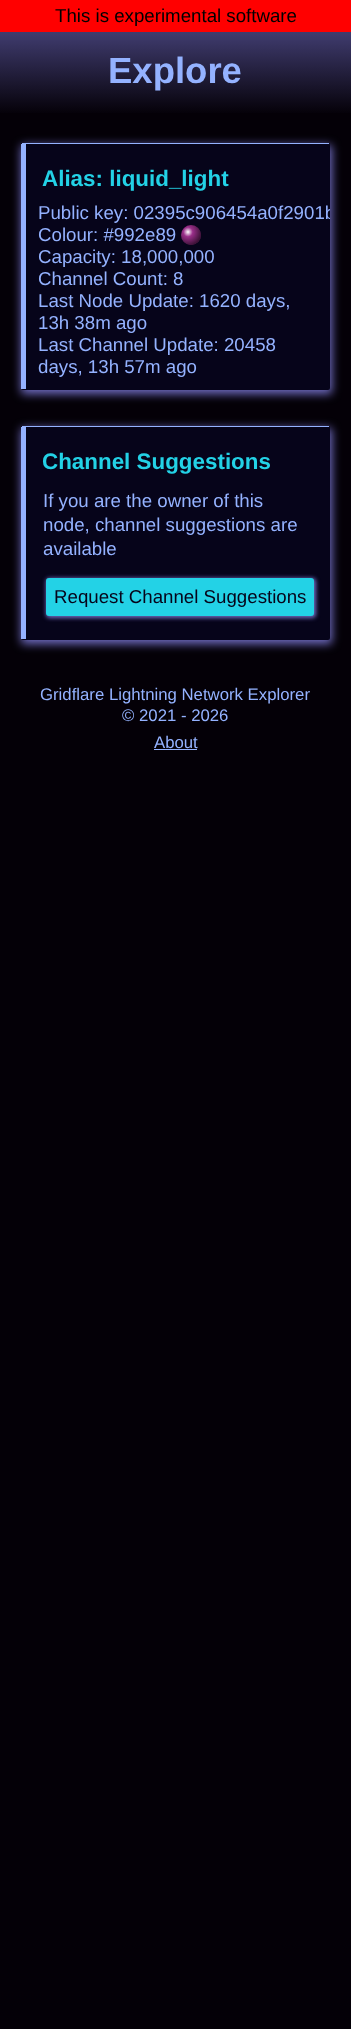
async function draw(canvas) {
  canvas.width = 351;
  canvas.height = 2029;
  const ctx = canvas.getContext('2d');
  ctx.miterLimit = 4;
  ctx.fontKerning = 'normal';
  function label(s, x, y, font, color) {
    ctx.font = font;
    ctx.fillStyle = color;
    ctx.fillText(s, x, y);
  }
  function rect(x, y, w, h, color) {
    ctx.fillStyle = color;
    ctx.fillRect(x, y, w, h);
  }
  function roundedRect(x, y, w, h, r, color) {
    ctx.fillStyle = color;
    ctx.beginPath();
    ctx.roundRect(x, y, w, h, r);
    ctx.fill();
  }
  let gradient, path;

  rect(0, 0, 351, 2029, '#040007');
  rect(0, 0, 351, 32, '#f00');
  label('This is experimental software', 55, 22, '18.7px Liberation Sans', '#000');
  gradient = ctx.createLinearGradient(176, -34, 176, 115);
  gradient.addColorStop(0, '#706cc2');
  gradient.addColorStop(1, '#040007');
  ctx.fillStyle = gradient;
  ctx.fillRect(0, 32, 351, 81);
  label('Explore', 108, 83, 'bold 36.5px Liberation Sans', '#94b2ff');
  ctx.fillStyle = '#706cc2';
  ctx.filter = 'blur(5px)';
  ctx.beginPath();
  ctx.roundRect(21, 145, 311, 249, 3);
  ctx.fill();
  ctx.filter = 'none';
  roundedRect(21, 143, 309, 247, 2, '#06041a');
  rect(22, 143, 307, 1, '#94b2ff');
  rect(21, 144, 5, 245, '#94b2ff');
  label('Alias: liquid_light', 42, 186, 'bold 22.4px Liberation Sans', '#23d2e6');
  ctx.save();
  path = new Path2D('M26 144H328C329 144 330 144.5 330 145V388C330 389 329 390 328 390H26Z');
  ctx.clip(path);
  label('Public key: 02395c906454a0f2901b', 38, 219, '18.7px Liberation Sans', '#94b2ff');
  ctx.restore();
  label('Colour: #992e89', 38, 241, '18.7px Liberation Sans', '#94b2ff');
  ctx.fillStyle = '#992e89';
  ctx.beginPath();
  ctx.arc(191, 235, 10, 0, 2 * Math.PI);
  ctx.fill();
  gradient = ctx.createRadialGradient(188, 232, 0, 188, 232, 19);
  gradient.addColorStop(0, '#fff');
  gradient.addColorStop(0.25, '#ffffff00');
  gradient.addColorStop(0.25, '#00000000');
  gradient.addColorStop(1, '#000');
  ctx.fillStyle = gradient;
  ctx.beginPath();
  ctx.arc(191, 235, 10, 0, 2 * Math.PI);
  ctx.fill();
  label('Capacity: 18,000,000', 38, 263, '18.7px Liberation Sans', '#94b2ff');
  label('Channel Count: 8', 38, 285, '18.7px Liberation Sans', '#94b2ff');
  label('Last Node Update: 1620 days,', 38, 307, '18.7px Liberation Sans', '#94b2ff');
  label('13h 38m ago', 38, 329, '18.7px Liberation Sans', '#94b2ff');
  label('Last Channel Update: 20458', 38, 351, '18.7px Liberation Sans', '#94b2ff');
  label('days, 13h 57m ago', 38, 373, '18.7px Liberation Sans', '#94b2ff');
  ctx.fillStyle = '#706cc2';
  ctx.filter = 'blur(5px)';
  ctx.beginPath();
  ctx.roundRect(21, 428, 311, 216, 3);
  ctx.fill();
  ctx.filter = 'none';
  roundedRect(21, 426, 309, 214, 2, '#06041a');
  rect(22, 426, 307, 1, '#94b2ff');
  rect(21, 427, 5, 212, '#94b2ff');
  label('Channel Suggestions', 42, 469, 'bold 22.4px Liberation Sans', '#23d2e6');
  label('If you are the owner of this', 43, 507, '18.7px Liberation Sans', '#94b2ff');
  label('node, channel suggestions are', 43, 531, '18.7px Liberation Sans', '#94b2ff');
  label('available', 43, 555, '18.7px Liberation Sans', '#94b2ff');
  ctx.fillStyle = '#706cc2';
  ctx.filter = 'blur(2px)';
  ctx.beginPath();
  ctx.roundRect(46, 578, 270, 40, 4);
  ctx.fill();
  ctx.filter = 'none';
  roundedRect(46, 578, 268, 38, 3, '#23d2e6');
  label('Request Channel Suggestions', 54, 603, '18.7px Liberation Sans', '#06041a');
  label('Gridflare Lightning Network Explorer', 40, 700, '16.75px Liberation Sans', '#94b2ff');
  label('© 2021 - 2026', 122, 721, '16.75px Liberation Sans', '#94b2ff');
  label('About', 154, 748, '16.75px Liberation Sans', '#94b2ff');
  rect(154, 749, 43, 1, '#94b2ff');
}

draw(document.querySelector('canvas'));
